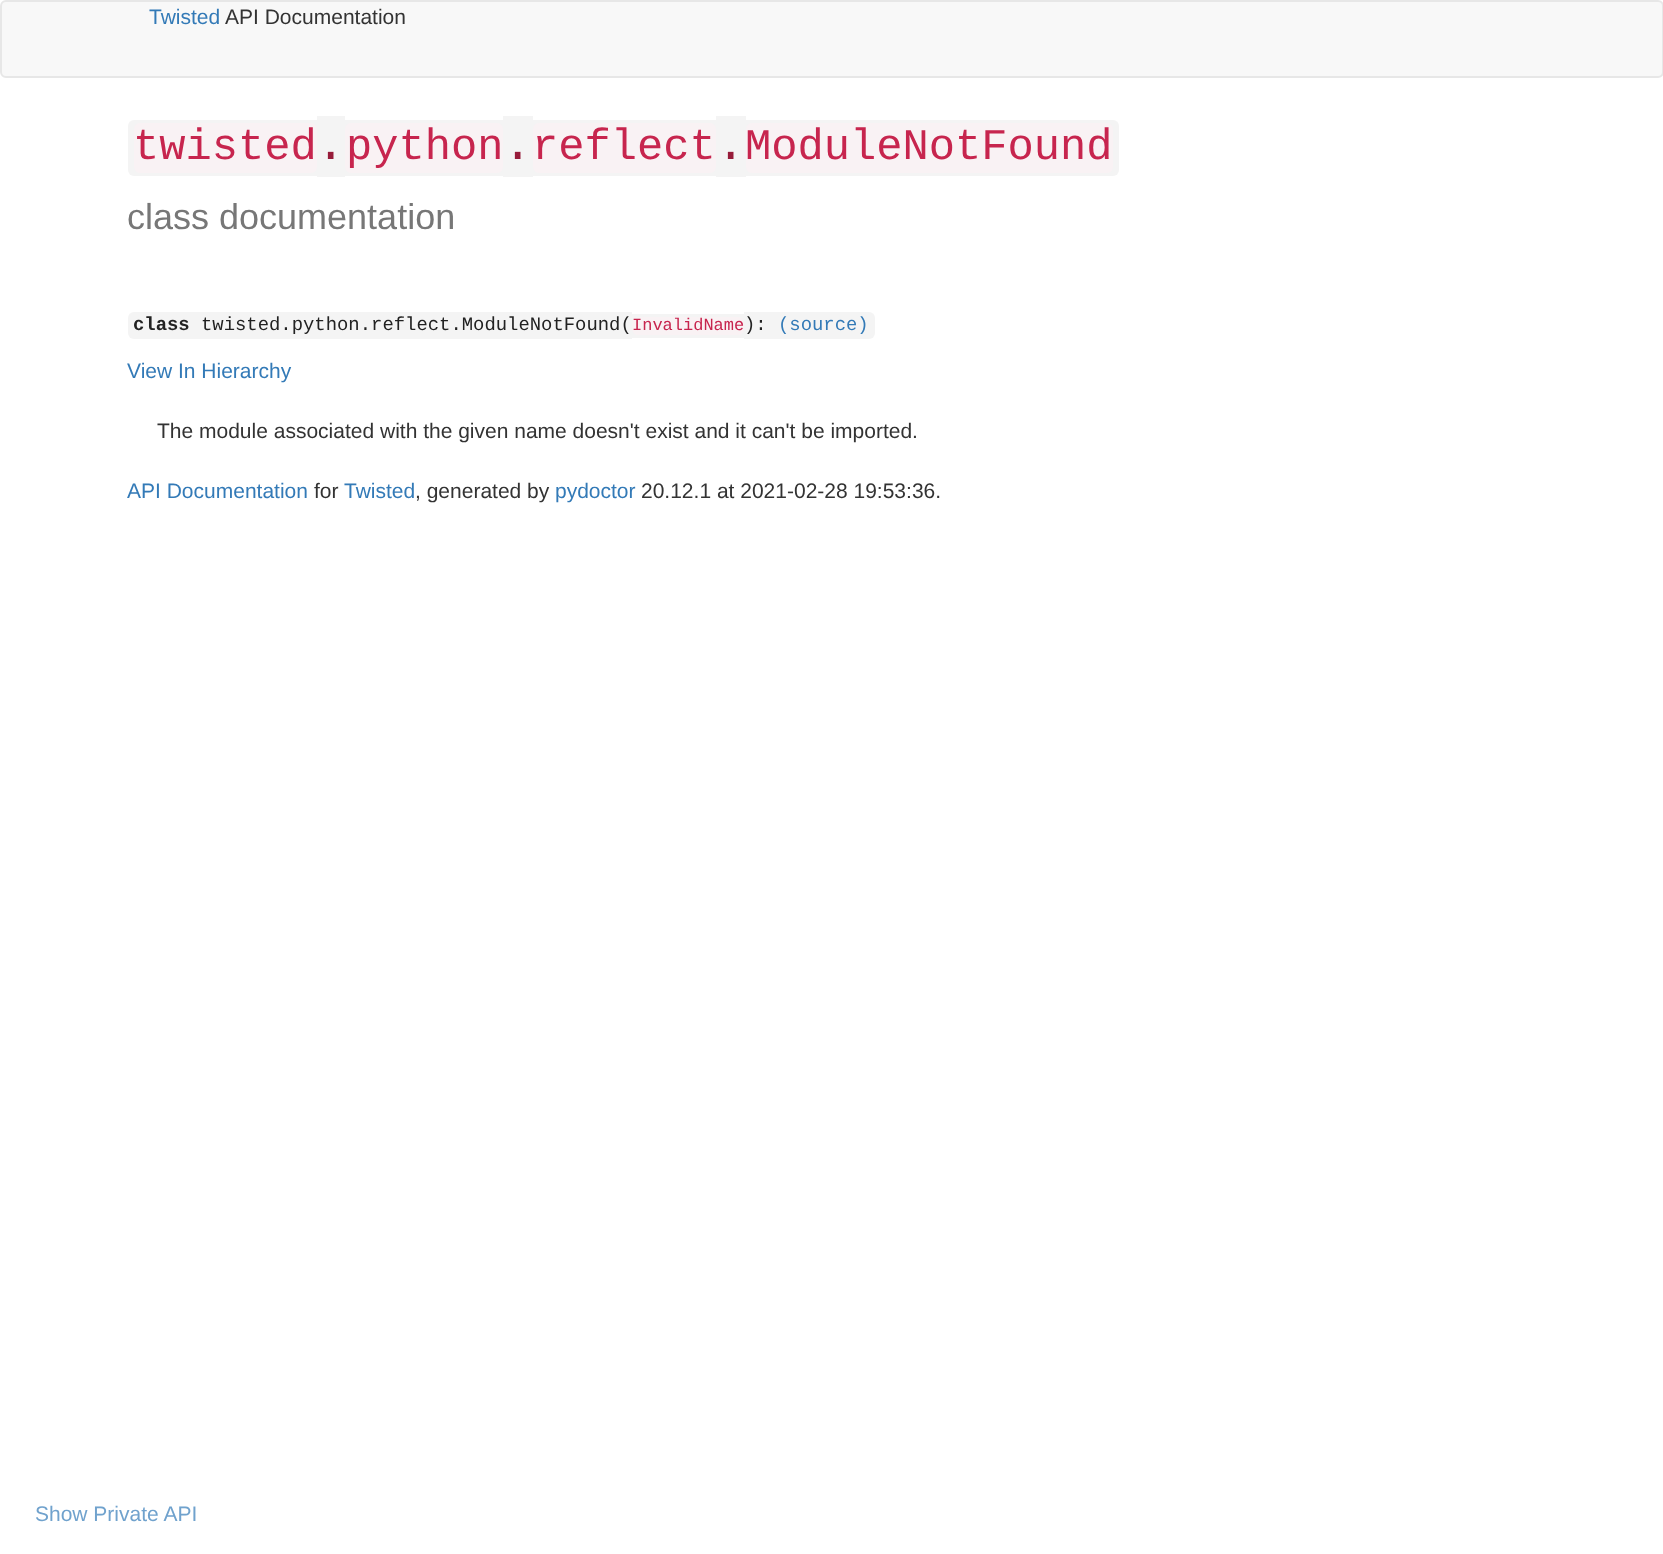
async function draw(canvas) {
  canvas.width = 1663;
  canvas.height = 1554;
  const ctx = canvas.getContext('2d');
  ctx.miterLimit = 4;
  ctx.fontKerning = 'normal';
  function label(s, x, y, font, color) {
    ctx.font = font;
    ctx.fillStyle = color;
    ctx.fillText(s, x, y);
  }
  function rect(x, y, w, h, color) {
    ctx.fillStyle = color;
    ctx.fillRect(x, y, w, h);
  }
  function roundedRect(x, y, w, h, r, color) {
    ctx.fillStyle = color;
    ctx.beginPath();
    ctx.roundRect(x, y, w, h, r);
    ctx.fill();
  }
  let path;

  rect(0, 0, 1663, 1554, '#fff');
  ctx.fillStyle = '#f8f8f8';
  ctx.beginPath();
  ctx.roundRect(1, 1, 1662, 76, 5);
  ctx.fill();
  ctx.strokeStyle = '#e7e7e7';
  ctx.lineWidth = 2;
  ctx.stroke();
  label('Twisted', 149, 24, '21px Liberation Sans', '#337ab7');
  label('API Documentation', 225, 24, '21px Liberation Sans', '#333');
  ctx.save();
  path = new Path2D('M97 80H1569V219H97ZM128 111H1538V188H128Z');
  ctx.clip(path, 'evenodd');
  ctx.fillStyle = '#fff';
  ctx.filter = 'blur(6px)';
  ctx.beginPath();
  ctx.rect(116, 99, 1434, 101);
  ctx.fill();
  ctx.filter = 'none';
  ctx.restore();
  ctx.fillStyle = '#f4f4f4';
  ctx.beginPath();
  ctx.roundRect(128, 120, 189, 56, [6, 0, 0, 6]);
  ctx.fill();
  roundedRect(134, 123, 183, 50, 6, '#f9f2f4');
  label('twisted', 133, 159, '43.75px Liberation Mono', '#c7254e');
  rect(317, 116, 28, 61, '#f4f4f4');
  label('.', 316, 159, '49px Liberation Mono', '#971c3a');
  rect(345, 120, 158, 56, '#f4f4f4');
  roundedRect(345, 123, 158, 50, 6, '#f9f2f4');
  label('python', 346, 159, '43.75px Liberation Mono', '#c7254e');
  rect(503, 116, 30, 61, '#f4f4f4');
  label('.', 503, 159, '49px Liberation Mono', '#971c3a');
  rect(533, 120, 183, 56, '#f4f4f4');
  roundedRect(533, 123, 183, 50, 6, '#f9f2f4');
  label('reflect', 532, 159, '43.75px Liberation Mono', '#c7254e');
  rect(716, 116, 30, 61, '#f4f4f4');
  label('.', 716, 159, '49px Liberation Mono', '#971c3a');
  ctx.fillStyle = '#f4f4f4';
  ctx.beginPath();
  ctx.roundRect(746, 120, 373, 56, [0, 6, 6, 0]);
  ctx.fill();
  roundedRect(746, 123, 367, 50, 6, '#f9f2f4');
  label('ModuleNotFound', 745, 159, '43.75px Liberation Mono', '#c7254e');
  label('class documentation', 127, 229, '36px Liberation Sans', '#777');
  ctx.fillStyle = '#f4f4f4';
  ctx.beginPath();
  ctx.roundRect(128, 312, 61, 27, [6, 0, 0, 6]);
  ctx.fill();
  label('class', 133, 330, 'bold 18.9px Liberation Mono', '#222');
  rect(189, 312, 443, 27, '#f4f4f4');
  label('twisted.python.reflect.ModuleNotFound(', 201, 330, '18.9px Liberation Mono', '#222');
  rect(632, 314, 112, 24, '#f4f4f4');
  roundedRect(632, 317, 112, 18, 6, '#f9f2f4');
  label('InvalidName', 632, 330, '17px Liberation Mono', '#c7254e');
  rect(744, 312, 35, 27, '#f4f4f4');
  label('):', 744, 330, '18.9px Liberation Mono', '#222');
  ctx.fillStyle = '#f4f4f4';
  ctx.beginPath();
  ctx.roundRect(779, 312, 96, 27, [0, 6, 6, 0]);
  ctx.fill();
  label('(source)', 778, 330, '18.9px Liberation Mono', '#337ab7');
  label('View In Hierarchy', 127, 378, '21px Liberation Sans', '#337ab7');
  label('The module associated with the given name doesn\'t exist and it can\'t be imported.', 157, 438, '21px Liberation Sans', '#333');
  label('API Documentation', 127, 498, '21px Liberation Sans', '#337ab7');
  label('for', 314, 498, '21px Liberation Sans', '#333');
  label('Twisted', 344, 498, '21px Liberation Sans', '#337ab7');
  label(', generated by', 415, 498, '21px Liberation Sans', '#333');
  label('pydoctor', 555, 498, '21px Liberation Sans', '#337ab7');
  label('20.12.1 at 2021-02-28 19:53:36.', 641, 498, '21px Liberation Sans', '#333');
  label('Show Private API', 35, 1521, '21px Liberation Sans', '#70a2cd');
}

draw(document.querySelector('canvas'));
